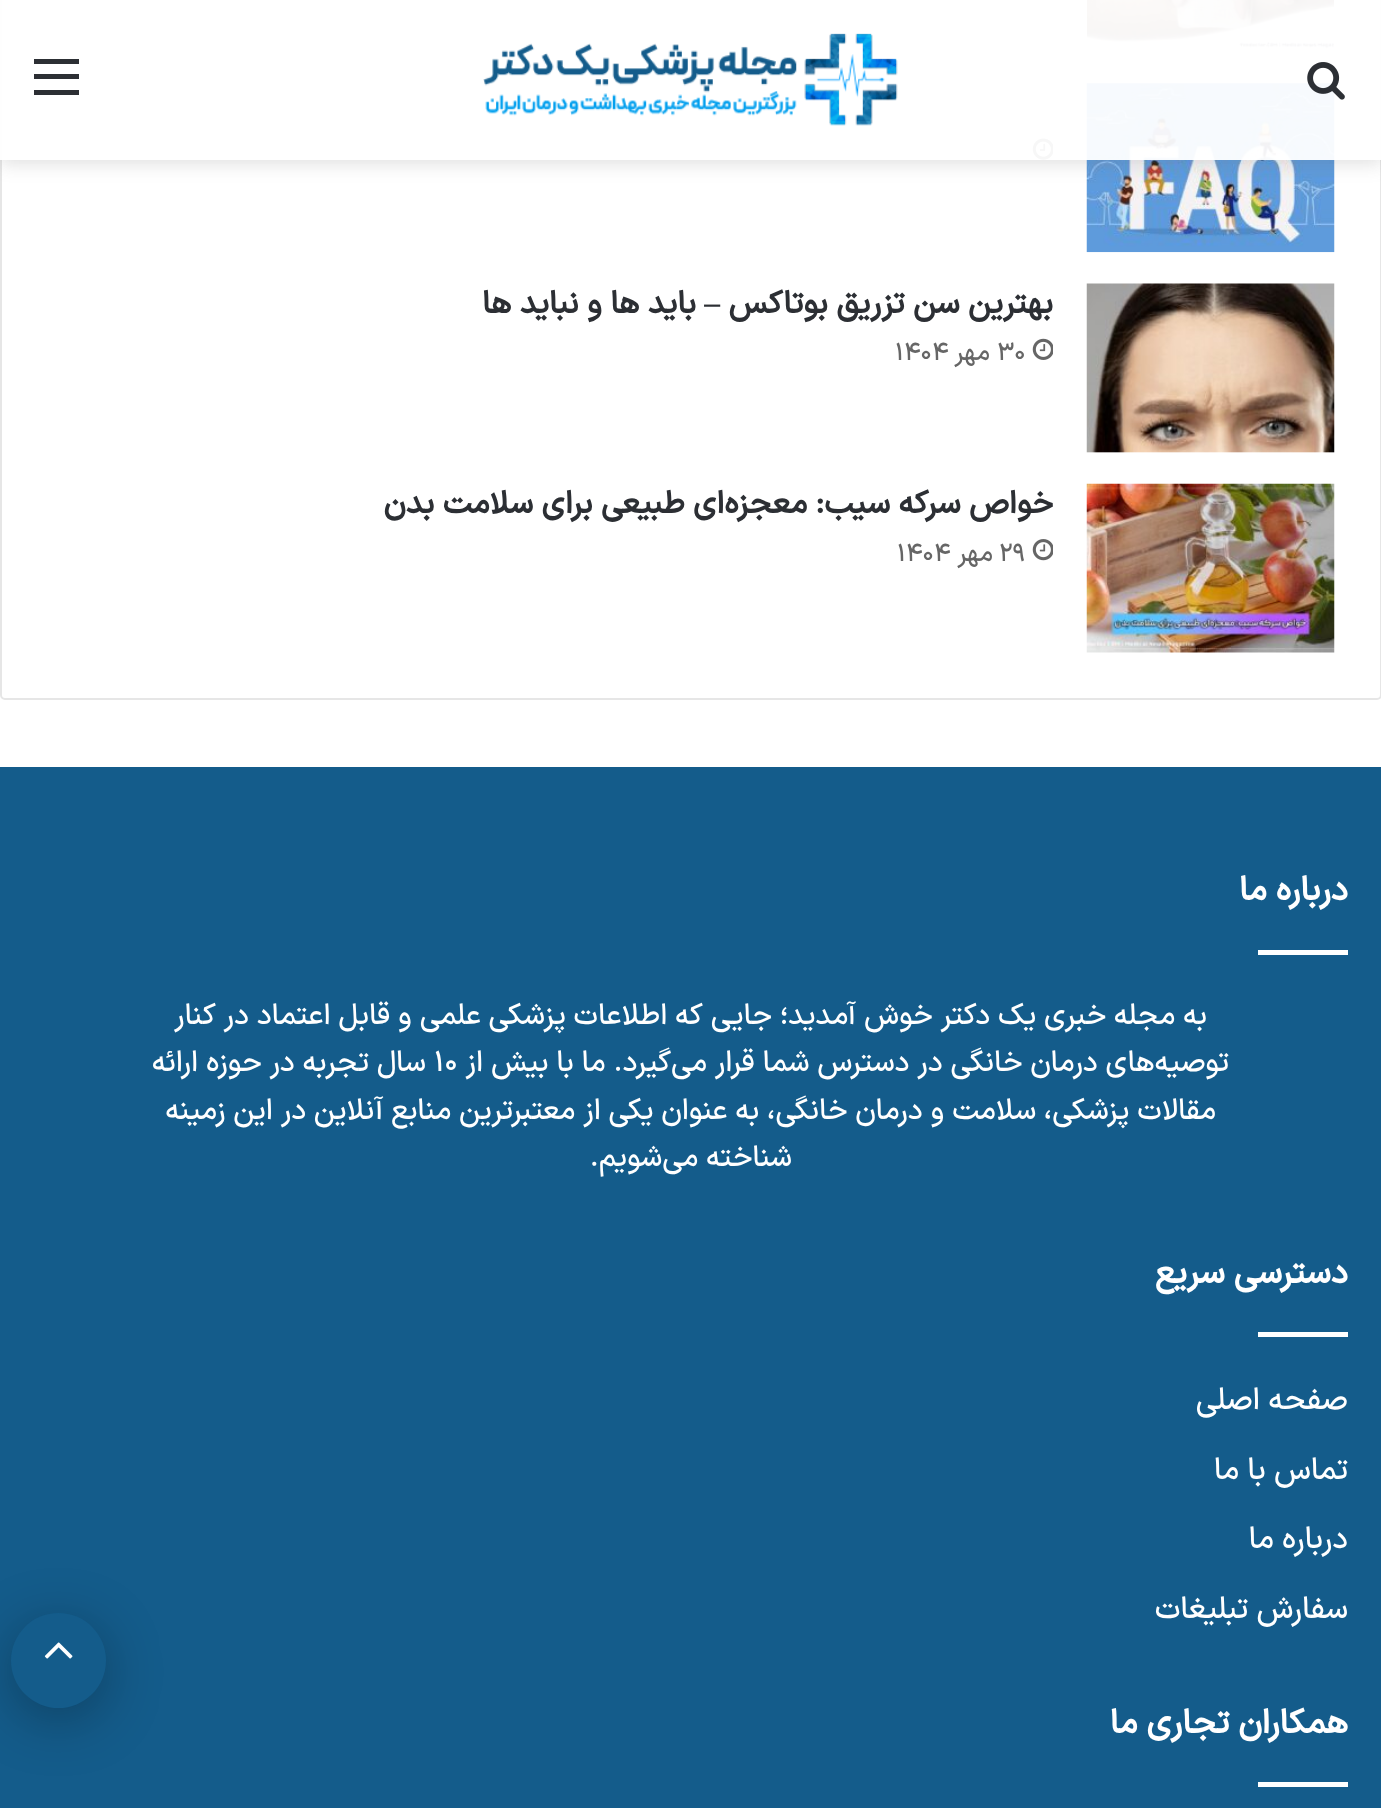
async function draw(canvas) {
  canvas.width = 1381;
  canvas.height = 1808;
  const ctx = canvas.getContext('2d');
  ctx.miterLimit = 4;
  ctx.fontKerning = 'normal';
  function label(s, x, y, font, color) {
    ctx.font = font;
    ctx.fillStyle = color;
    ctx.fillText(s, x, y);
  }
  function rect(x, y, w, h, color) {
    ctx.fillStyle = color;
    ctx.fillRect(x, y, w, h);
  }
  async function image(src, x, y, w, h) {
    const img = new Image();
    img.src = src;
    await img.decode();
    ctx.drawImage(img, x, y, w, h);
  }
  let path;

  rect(0, 0, 1381, 1808, '#fff');
  ctx.beginPath();
  ctx.roundRect(1, -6, 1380, 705, 4);
  ctx.strokeStyle = '#e6e6e6';
  ctx.lineWidth = 2;
  ctx.stroke();
  await image('assets/img3.png', 1087, 0, 247, 52);
  await image('assets/img4.png', 1086, 83, 249, 170);
  await image('assets/img5.png', 1032, 138, 21, 22);
  ctx.save();
  path = new Path2D('M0 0H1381V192H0ZM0 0H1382V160H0Z');
  ctx.clip(path, 'evenodd');
  ctx.fillStyle = '#63636333';
  ctx.filter = 'blur(9px)';
  ctx.beginPath();
  ctx.rect(0, 5, 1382, 159);
  ctx.fill();
  ctx.filter = 'none';
  ctx.restore();
  rect(0, 0, 1381, 160, '#fffffff2');
  await image('assets/img1.png', 1307, 62, 38, 38);
  await image('assets/img2.png', 483, 33, 415, 93);
  rect(34, 74, 45, 5, '#2c2f34');
  rect(34, 59, 45, 5, '#2c2f34');
  rect(34, 90, 45, 5, '#2c2f34');
  await image('assets/img6.png', 1086, 283, 249, 170);
  ctx.direction = 'rtl';
  label('بهترین سن تزریق بوتاکس', 1053, 313, 'bold 31.5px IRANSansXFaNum', '#2c2f34');
  label('–', 720, 313, 'bold 31.5px Liberation Serif', '#2c2f34');
  label('باید ها و نباید ها', 696, 313, 'bold 31.5px IRANSansXFaNum', '#2c2f34');
  await image('assets/img7.png', 1032, 338, 21, 22);
  ctx.direction = 'ltr';
  label('30', 997, 360, '500 25px IRANSansXFaNum', '#666');
  ctx.direction = 'rtl';
  label('مهر', 990, 360, '500 25px IRANSansXFaNum', '#666');
  ctx.direction = 'ltr';
  label('1404', 895, 360, '500 25px IRANSansXFaNum', '#666');
  await image('assets/img8.png', 1086, 483, 249, 170);
  ctx.direction = 'rtl';
  label('خواص سرکه سیب: معجزه‌ای طبیعی برای سلامت بدن', 1053, 513, 'bold 31.5px IRANSansXFaNum', '#2c2f34');
  await image('assets/img9.png', 1032, 539, 21, 22);
  ctx.direction = 'ltr';
  label('29', 999, 561, '500 25px IRANSansXFaNum', '#666');
  ctx.direction = 'rtl';
  label('مهر', 993, 561, '500 25px IRANSansXFaNum', '#666');
  ctx.direction = 'ltr';
  label('1404', 897, 561, '500 25px IRANSansXFaNum', '#666');
  rect(0, 767, 1381, 1041, '#145c8b');
  ctx.direction = 'rtl';
  label('درباره ما', 1348, 900, 'bold 33.75px IRANSansXFaNum', '#fff');
  rect(1258, 950, 90, 5, '#fff');
  label('به مجله خبری یک دکتر خوش آمدید؛ جایی که اطلاعات پزشکی علمی و قابل اعتماد در کنار', 1207, 1024, '500 29.25px IRANSansXFaNum', '#fff');
  label('توصیه‌های درمان خانگی در دسترس شما قرار می‌گیرد. ما با بیش از', 1229, 1071, '500 29.25px IRANSansXFaNum', '#fff');
  ctx.direction = 'ltr';
  label('۱۰', 434, 1071, '500 29.25px IRANSansXFaNum', '#fff');
  ctx.direction = 'rtl';
  label('سال تجربه در حوزه ارائه', 426, 1071, '500 29.25px IRANSansXFaNum', '#fff');
  label('مقالات پزشکی، سلامت و درمان خانگی، به عنوان یکی از معتبرترین منابع آنلاین در این زمینه', 1216, 1119, '500 29.25px IRANSansXFaNum', '#fff');
  label('شناخته می‌شویم.', 792, 1166, '500 29.25px IRANSansXFaNum', '#fff');
  label('دسترسی سریع', 1348, 1283, 'bold 33.75px IRANSansXFaNum', '#fff');
  rect(1258, 1332, 90, 5, '#fff');
  label('صفحه اصلی', 1348, 1409, '500 30.75px IRANSansXFaNum', '#fff');
  label('تماس با ما', 1348, 1479, '500 30.75px IRANSansXFaNum', '#fff');
  label('درباره ما', 1348, 1548, '500 30.75px IRANSansXFaNum', '#fff');
  label('سفارش تبلیغات', 1348, 1618, '500 30.75px IRANSansXFaNum', '#fff');
  label('همکاران تجاری ما', 1348, 1733, 'bold 33.75px IRANSansXFaNum', '#fff');
  rect(1258, 1782, 90, 5, '#fff');
  ctx.fillStyle = '#0000004d';
  ctx.filter = 'blur(28px)';
  ctx.beginPath();
  ctx.roundRect(11, 1625, 95, 94, 47);
  ctx.fill();
  ctx.filter = 'none';
  ctx.fillStyle = '#145c8b';
  ctx.beginPath();
  ctx.arc(58.5, 1660.5, 47.5, 0, 2 * Math.PI);
  ctx.fill();
  await image('assets/img10.png', 44, 1642, 29, 17);
}

draw(document.querySelector('canvas'));
